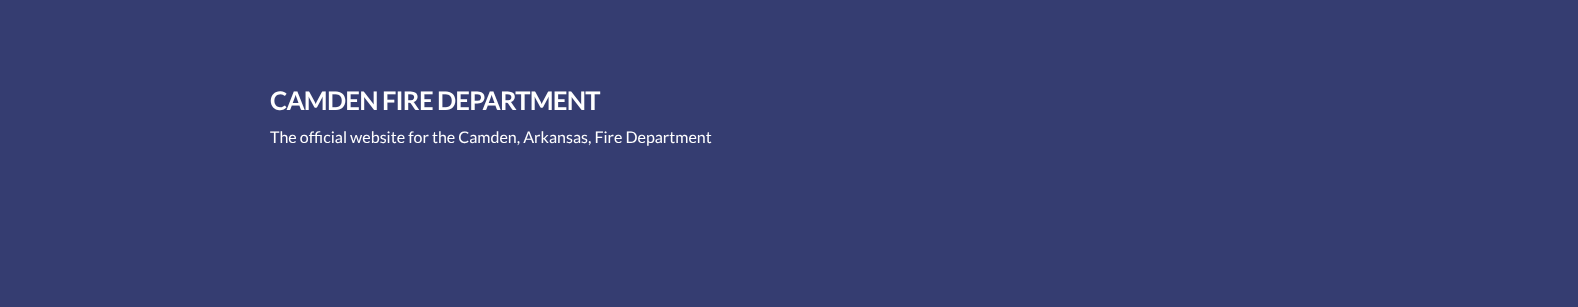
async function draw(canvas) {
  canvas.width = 1578;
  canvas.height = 307;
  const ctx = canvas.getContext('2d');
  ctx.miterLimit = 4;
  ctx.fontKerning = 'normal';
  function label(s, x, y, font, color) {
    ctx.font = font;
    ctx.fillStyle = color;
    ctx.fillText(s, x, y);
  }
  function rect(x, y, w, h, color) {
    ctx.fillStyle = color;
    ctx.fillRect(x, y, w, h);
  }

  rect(0, 0, 1578, 307, '#353d71');
  ctx.letterSpacing = '-0.75px';
  label('CAMDEN FIRE DEPARTMENT', 270, 110, 'bold 25.6px Lato', '#fff');
  ctx.letterSpacing = '0px';
  label('The official website for the Camden, Arkansas, Fire Department', 270, 143, '16px Lato', '#fff');
}

draw(document.querySelector('canvas'));
